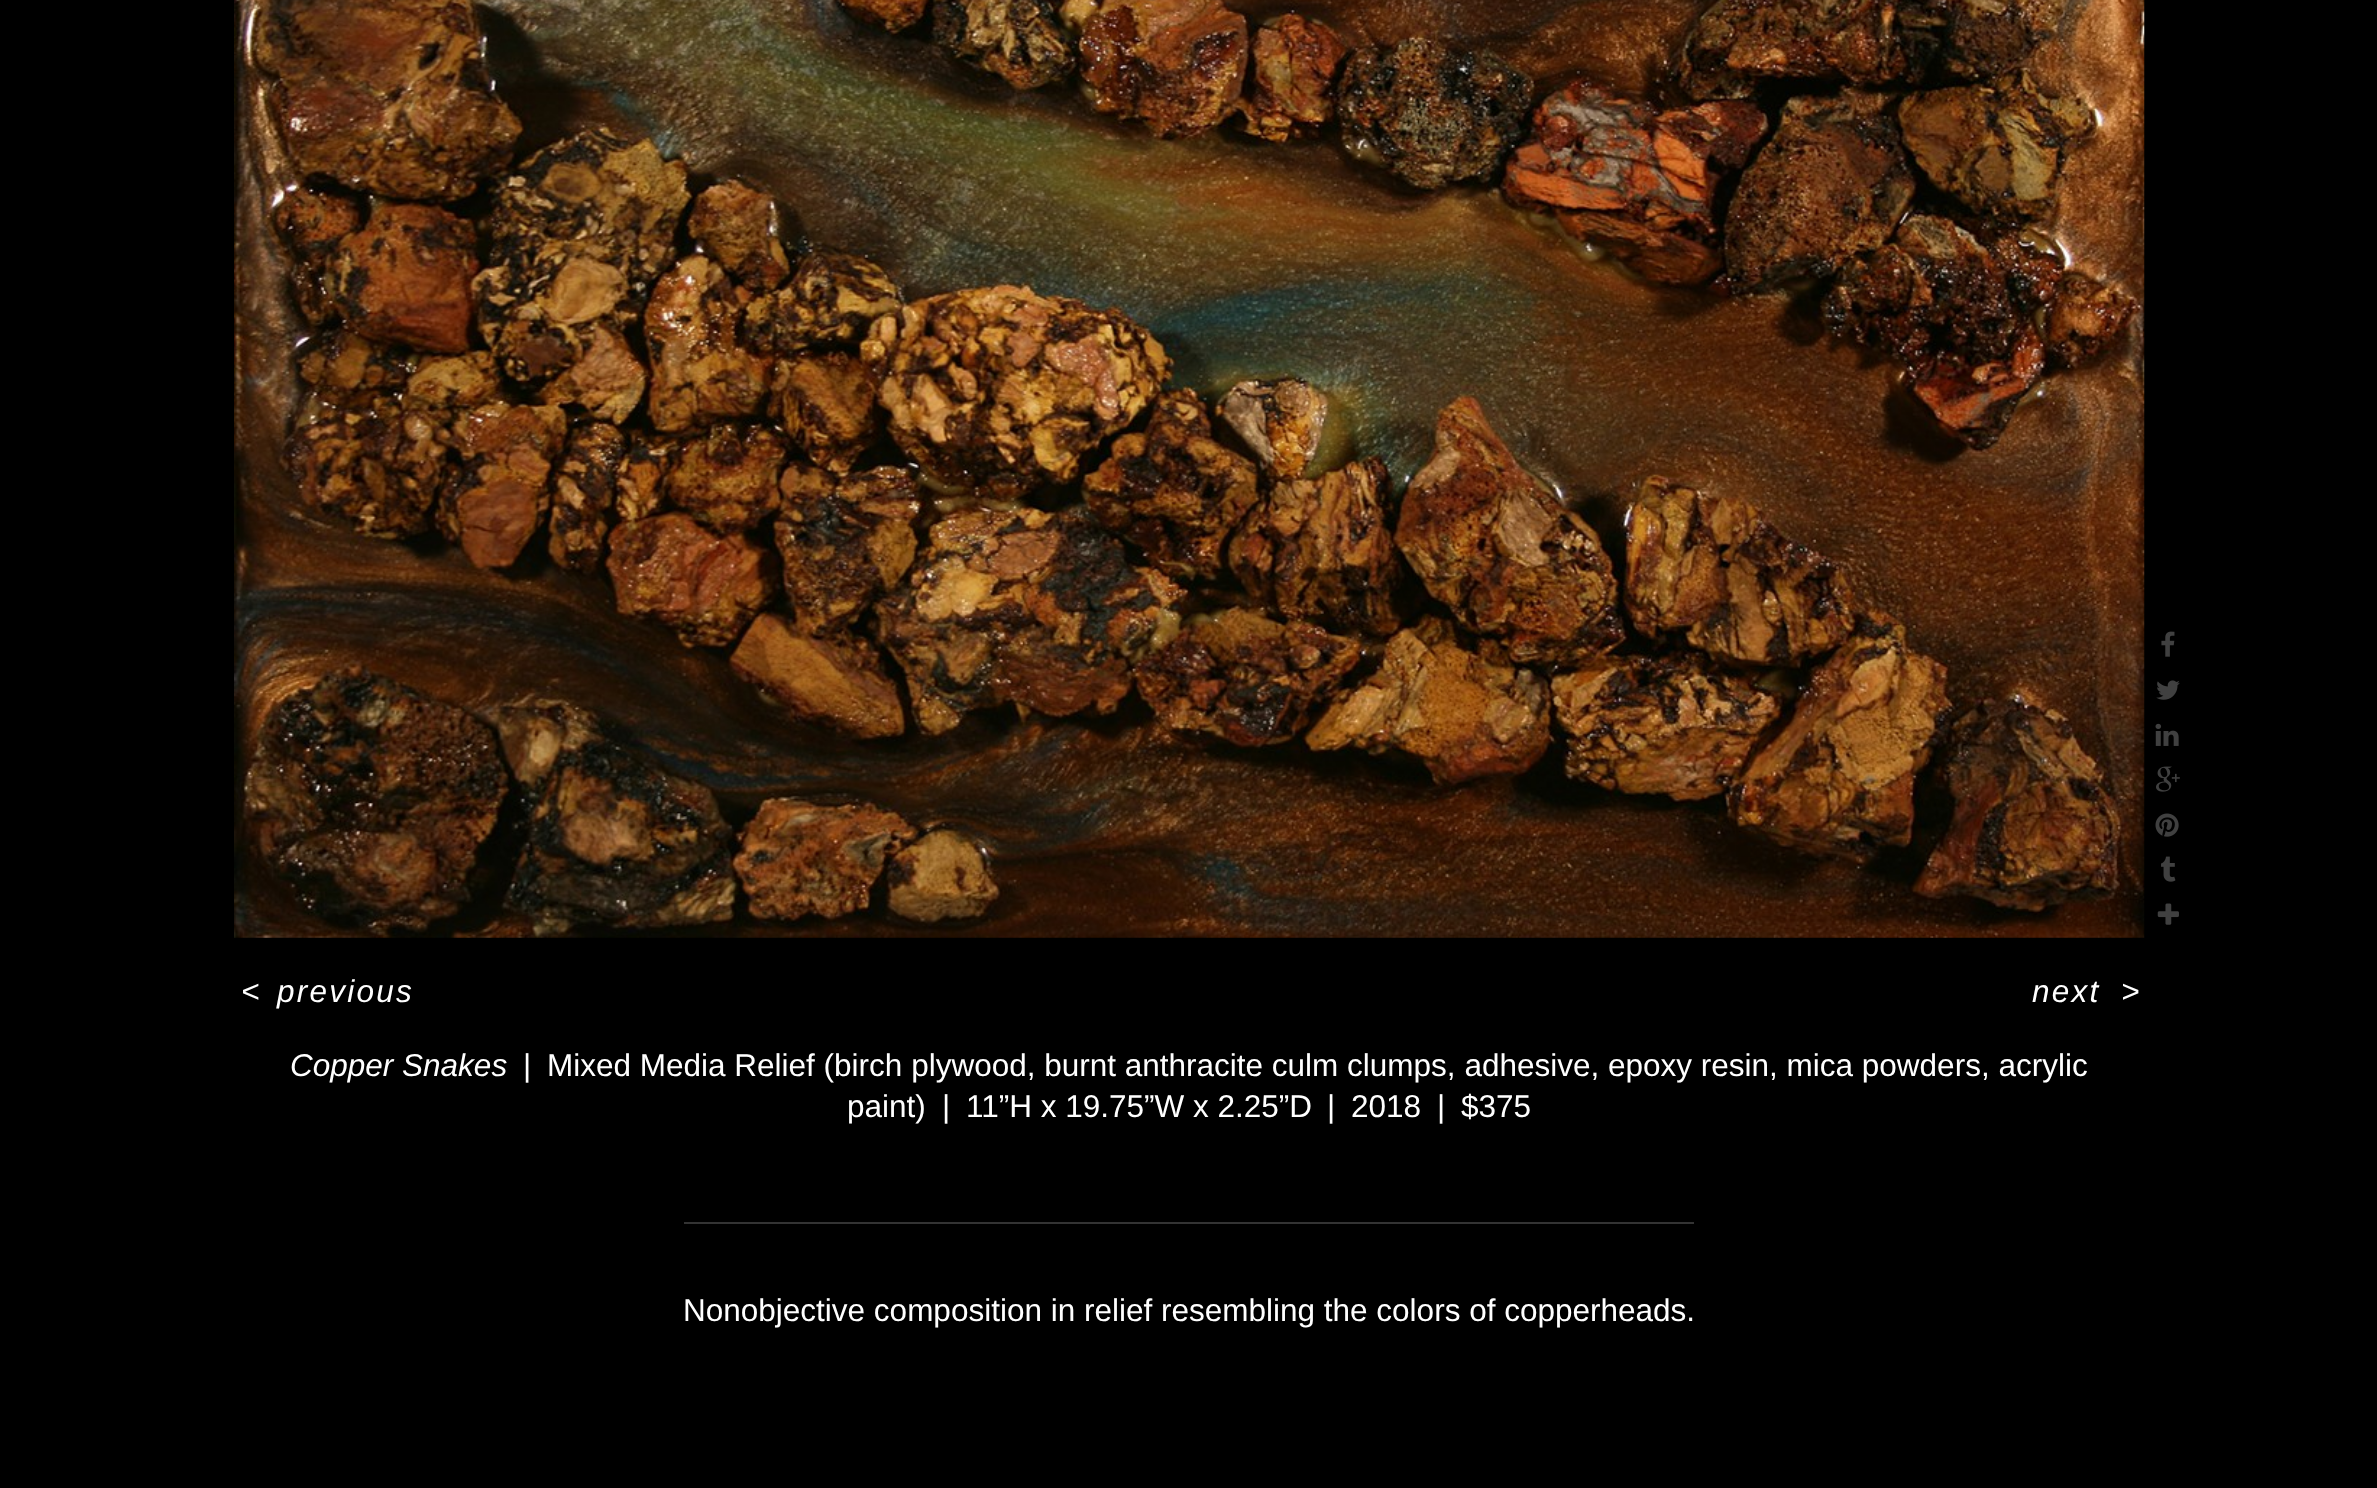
async function draw(canvas) {
  canvas.width = 2377;
  canvas.height = 1488;
  const ctx = canvas.getContext('2d');
  ctx.miterLimit = 4;
  ctx.fontKerning = 'normal';
  function label(s, x, y, font, color) {
    ctx.font = font;
    ctx.fillStyle = color;
    ctx.fillText(s, x, y);
  }
  function rect(x, y, w, h, color) {
    ctx.fillStyle = color;
    ctx.fillRect(x, y, w, h);
  }
  async function image(src, x, y, w, h) {
    const img = new Image();
    img.src = src;
    await img.decode();
    ctx.drawImage(img, x, y, w, h);
  }

  rect(0, 0, 2377, 1488, '#000');
  await image('assets/img1.png', 234, 0, 1911, 938);
  await image('assets/img2.png', 2161, 631, 14, 26);
  await image('assets/img3.png', 2156, 680, 24, 20);
  await image('assets/img4.png', 2155, 723, 24, 23);
  await image('assets/img5.png', 2156, 766, 24, 26);
  await image('assets/img6.png', 2155, 813, 24, 24);
  await image('assets/img7.png', 2161, 856, 15, 26);
  await image('assets/img8.png', 2157, 903, 22, 22);
  ctx.letterSpacing = '2.25px';
  label('<', 241, 1002, 'italic 31.5px Liberation Sans', '#fff');
  label('previous', 277, 1002, 'italic 31.5px Liberation Sans', '#fff');
  label('next', 2032, 1002, 'italic 31.5px Liberation Sans', '#fff');
  label('>', 2121, 1002, 'italic 31.5px Liberation Sans', '#fff');
  ctx.letterSpacing = '0px';
  label('Copper Snakes', 290, 1076, 'italic 31.5px Liberation Sans', '#fff');
  label('|', 523, 1076, '31.5px Liberation Sans', '#fff');
  label('Mixed Media Relief (birch plywood, burnt anthracite culm clumps, adhesive, epoxy resin, mica powders, acrylic', 547, 1076, '31.5px Liberation Sans', '#fff');
  label('paint)', 847, 1117, '31.5px Liberation Sans', '#fff');
  label('|', 942, 1117, '31.5px Liberation Sans', '#fff');
  label('11”H x 19.75”W x 2.25”D', 966, 1117, '31.5px Liberation Sans', '#fff');
  label('|', 1327, 1117, '31.5px Liberation Sans', '#fff');
  label('2018', 1351, 1117, '31.5px Liberation Sans', '#fff');
  label('|', 1437, 1117, '31.5px Liberation Sans', '#fff');
  label('$375', 1461, 1117, '31.5px Liberation Sans', '#fff');
  rect(684, 1222, 1010, 2, '#333');
  label('Nonobjective composition in relief resembling the colors of copperheads.', 683, 1321, '31.5px Liberation Sans', '#fff');
}

draw(document.querySelector('canvas'));
